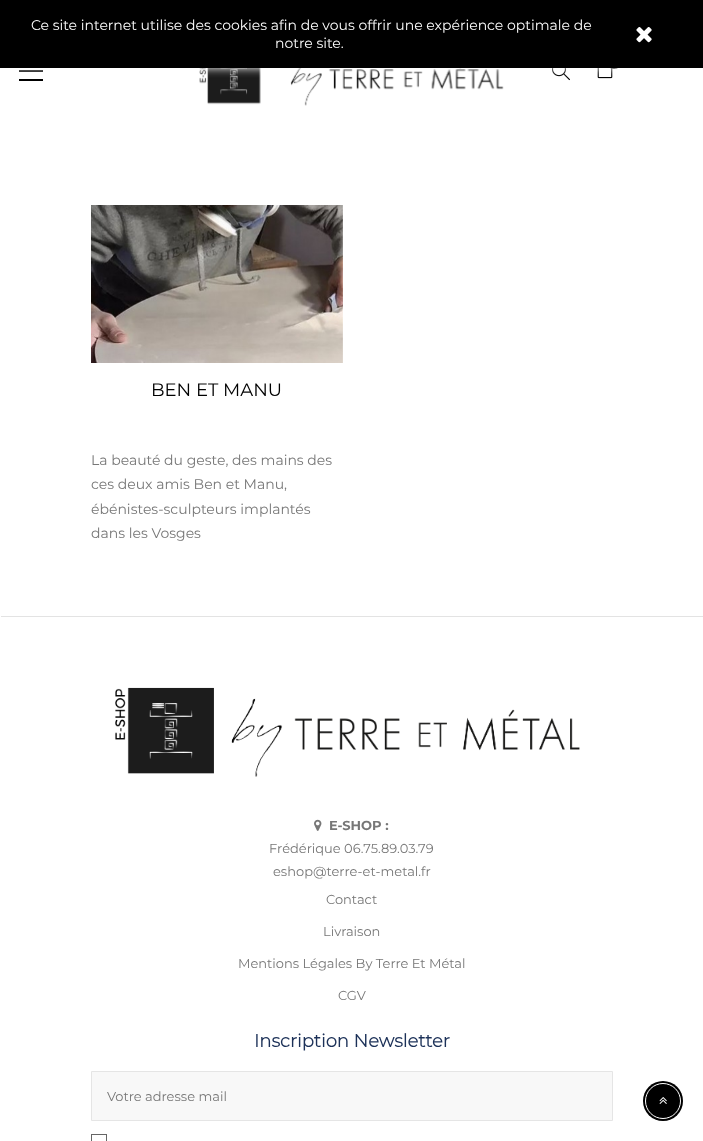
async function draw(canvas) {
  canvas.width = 703;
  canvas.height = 1141;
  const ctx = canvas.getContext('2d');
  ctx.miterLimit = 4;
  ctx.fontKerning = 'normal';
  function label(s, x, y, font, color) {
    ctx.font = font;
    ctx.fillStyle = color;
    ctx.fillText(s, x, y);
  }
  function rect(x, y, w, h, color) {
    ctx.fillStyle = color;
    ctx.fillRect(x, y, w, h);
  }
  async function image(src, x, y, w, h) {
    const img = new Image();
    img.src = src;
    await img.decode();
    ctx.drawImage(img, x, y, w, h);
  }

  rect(0, 0, 703, 1141, '#fff');
  rect(19, 70, 24, 2, '#000');
  rect(19, 79, 24, 2, '#000');
  await image('assets/img4.png', 199, 68, 305, 38);
  await image('assets/img5.png', 552, 68, 18, 13);
  await image('assets/img6.png', 597, 68, 16, 11);
  ctx.beginPath();
  ctx.arc(614, 61, 8, 0, 2 * Math.PI);
  ctx.fill();
  ctx.fillStyle = '#fff';
  ctx.filter = 'blur(5px)';
  ctx.beginPath();
  ctx.rect(0, 0, 703, 68);
  ctx.fill();
  ctx.filter = 'none';
  rect(0, 0, 703, 68, '#000');
  label('Ce site internet utilise des cookies afin de vous offrir une expérience optimale de', 31, 30, '14px Montserrat', '#fff');
  label('notre site.', 275, 48, '14px Montserrat', '#fff');
  await image('assets/img1.png', 636, 27, 16, 16);
  rect(1, 616, 702, 1, '#e3e3e3');
  await image('assets/img2.png', 115, 687, 465, 90);
  await image('assets/img3.png', 314, 819, 8, 12);
  label('E-SHOP :', 329, 830, 'bold 13px Montserrat', '#777');
  label('Frédérique 06.75.89.03.79', 269, 853, '13px Montserrat', '#777');
  label('eshop@terre-et-metal.fr', 273, 876, '13px Montserrat', '#777');
  label('Contact', 326, 904, '13px Montserrat', '#777');
  label('Livraison', 323, 936, '13px Montserrat', '#777');
  label('Mentions Légales By Terre Et Métal', 238, 968, '13px Montserrat', '#777');
  label('CGV', 338, 1000, '13px Montserrat', '#777');
  label('Inscription Newsletter', 254, 1047, 'bold 18px "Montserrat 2"', '#1c3158');
  ctx.fillStyle = '#f8f8f8';
  ctx.beginPath();
  ctx.rect(91.5, 1071.5, 521, 49);
  ctx.fill();
  ctx.strokeStyle = '#e5e5e5';
  ctx.stroke();
  label('Votre adresse mail', 107, 1101, '13px Montserrat', '#777');
  ctx.strokeStyle = '#666';
  ctx.strokeRect(91.5, 1134.5, 15, 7);
  await image('assets/img7.png', 91, 205, 252, 158);
  label('BEN ET MANU', 151, 396, '18px Montserrat', '#000');
  label('La beauté du geste, des mains des', 91, 465, '14px Montserrat', '#777');
  label('ces deux amis Ben et Manu,', 91, 489, '14px Montserrat', '#777');
  label('ébénistes-sculpteurs implantés', 91, 514, '14px Montserrat', '#777');
  label('dans les Vosges', 91, 538, '14px Montserrat', '#777');
  ctx.fillStyle = '#000';
  ctx.beginPath();
  ctx.arc(663, 1101, 20, 0, 2 * Math.PI);
  ctx.fill();
  ctx.beginPath();
  ctx.arc(663, 1101, 17.5, 0, 2 * Math.PI);
  ctx.strokeStyle = '#fff';
  ctx.stroke();
  await image('assets/img8.png', 659, 1097, 8, 7);
}

draw(document.querySelector('canvas'));
